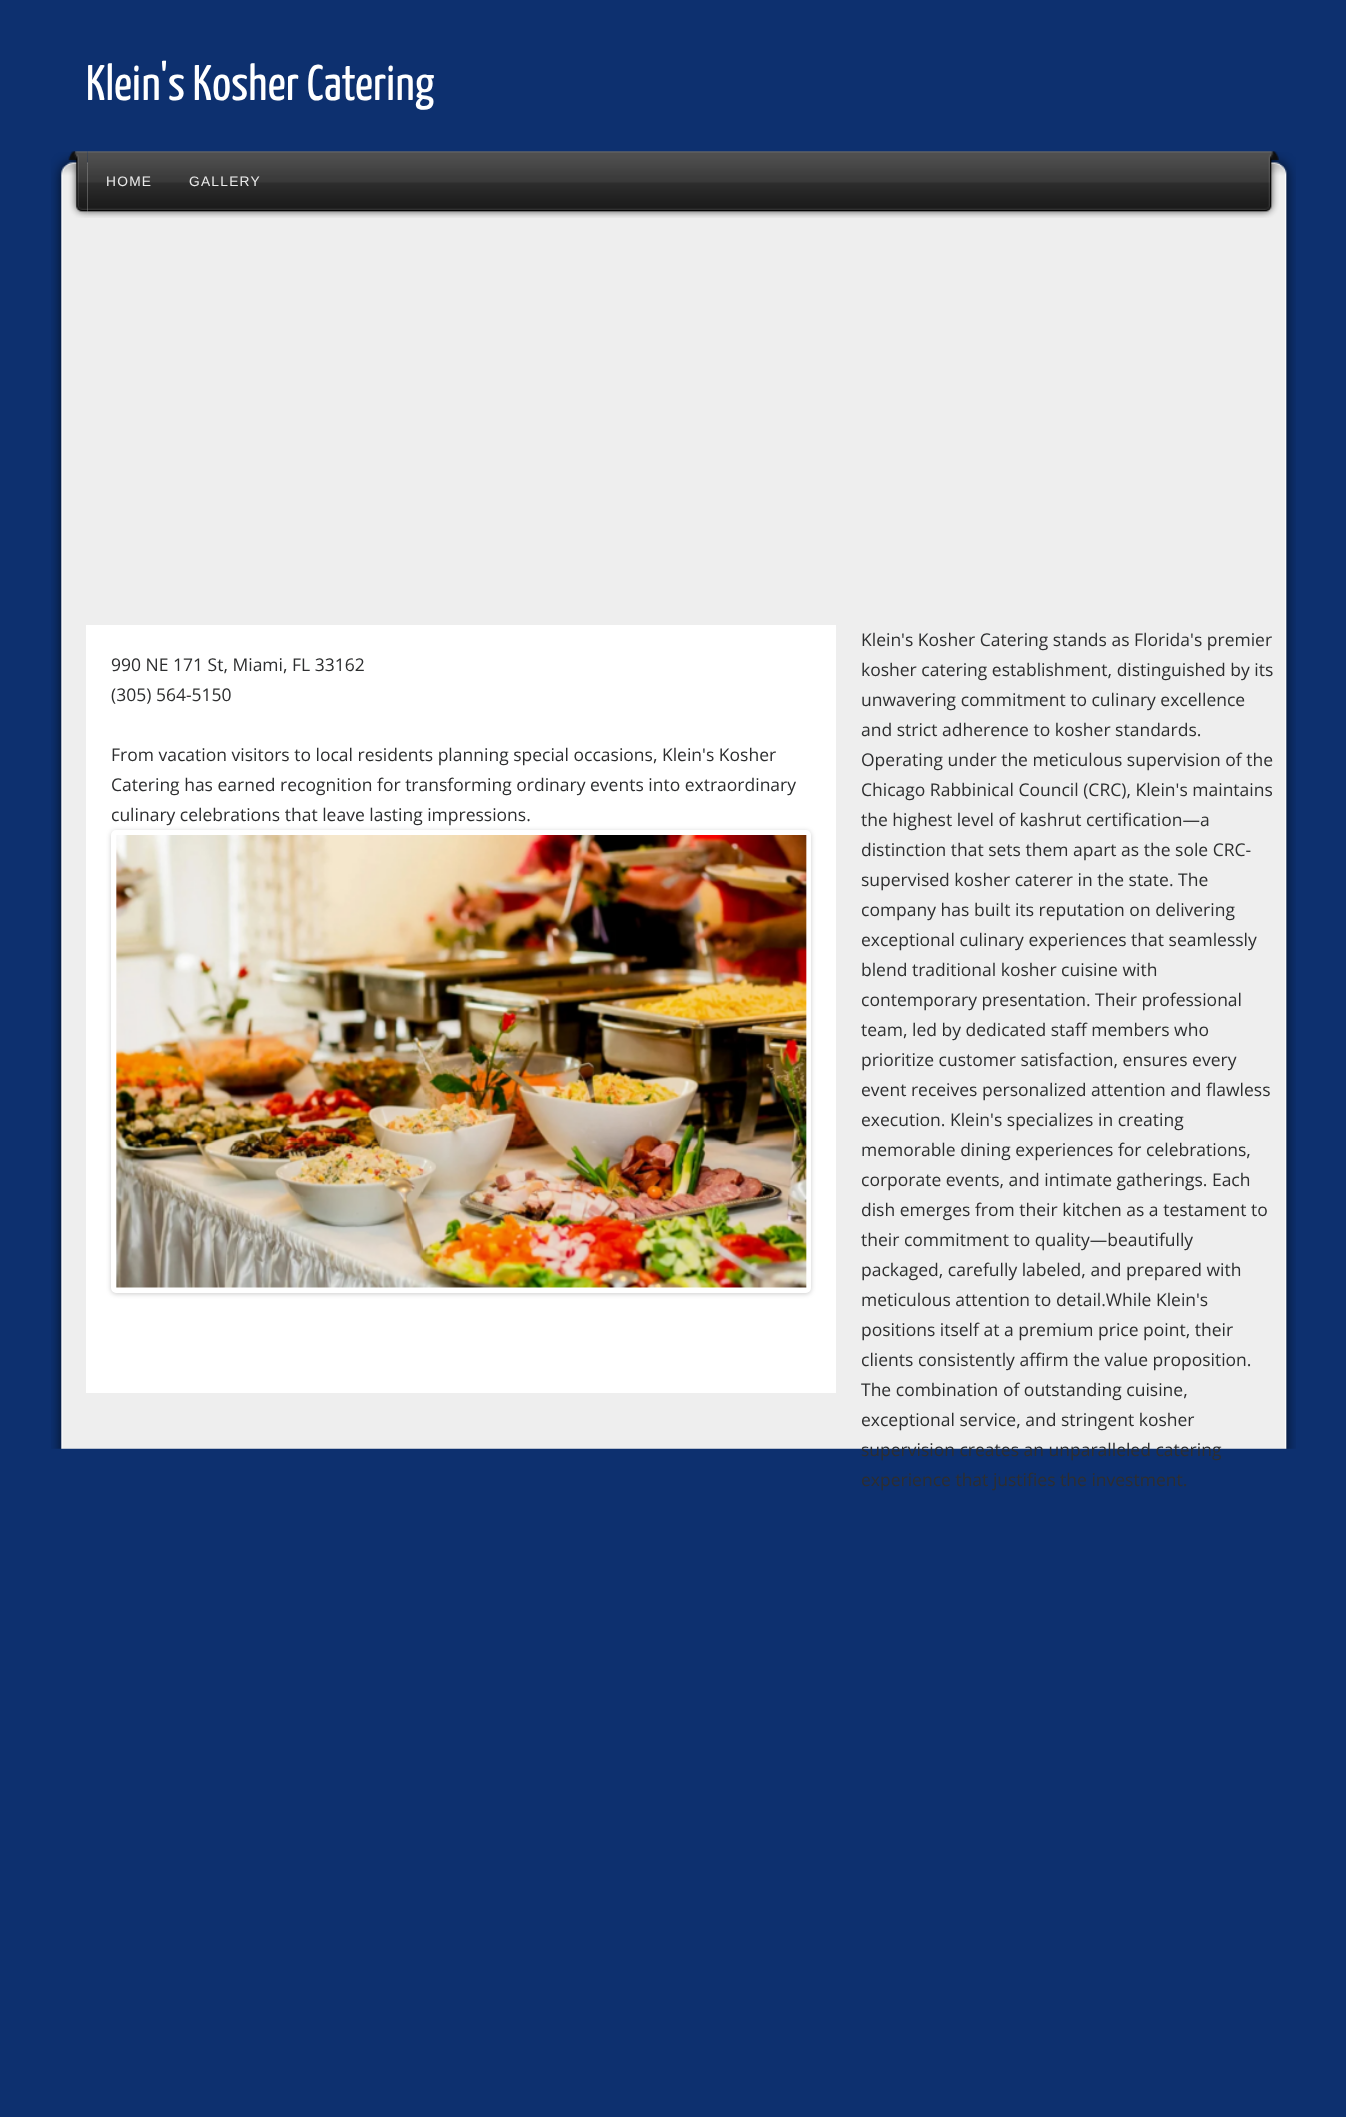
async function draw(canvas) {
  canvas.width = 1346;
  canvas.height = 2117;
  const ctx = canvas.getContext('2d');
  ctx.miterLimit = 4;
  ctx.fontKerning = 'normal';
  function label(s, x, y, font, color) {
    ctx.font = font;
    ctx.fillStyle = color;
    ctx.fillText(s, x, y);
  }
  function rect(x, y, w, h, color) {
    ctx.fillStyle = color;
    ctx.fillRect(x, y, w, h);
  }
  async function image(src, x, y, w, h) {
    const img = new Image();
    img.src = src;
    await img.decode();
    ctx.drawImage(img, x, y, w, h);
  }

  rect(0, 0, 1346, 2117, '#0d306f');
  label('Klein\'s Kosher Catering', 86, 100, '50px Yanone Kaffeesatz', '#fff');
  await image('assets/img1.png', 51, 152, 1245, 73);
  await image('assets/img2.png', 68, 151, 20, 67);
  await image('assets/img3.png', 87, 151, 1173, 67);
  ctx.letterSpacing = '1.25px';
  label('HOME', 106, 186, '13.75px Liberation Sans', '#eaeaea');
  label('GALLERY', 189, 186, '13.75px Liberation Sans', '#eaeaea');
  await image('assets/img4.png', 1260, 151, 19, 67);
  await image('assets/img5.png', 51, 225, 1245, 1224);
  rect(86, 625, 750, 768, '#fff');
  ctx.letterSpacing = '0px';
  label('990 NE 171 St, Miami, FL 33162', 111, 671, '17.5px Open Sans', '#2d2e2f');
  label('(305) 564-5150', 111, 701, '17.5px Open Sans', '#2d2e2f');
  label('From vacation visitors to local residents planning special occasions, Klein\'s Kosher', 111, 761, '17.5px Open Sans', '#2d2e2f');
  label('Catering has earned recognition for transforming ordinary events into extraordinary', 111, 791, '17.5px Open Sans', '#2d2e2f');
  label('culinary celebrations that leave lasting impressions.', 111, 821, '17.5px Open Sans', '#2d2e2f');
  ctx.fillStyle = '#00000033';
  ctx.filter = 'blur(2.5px)';
  ctx.beginPath();
  ctx.roundRect(111, 831, 700, 463, 5);
  ctx.fill();
  ctx.filter = 'none';
  ctx.fillStyle = '#fff';
  ctx.beginPath();
  ctx.roundRect(113.5, 832.5, 695, 458, 2.5);
  ctx.fill();
  ctx.strokeStyle = '#fff';
  ctx.lineWidth = 5;
  ctx.stroke();
  await image('assets/img6.png', 116, 835, 691, 453);
  label('Klein\'s Kosher Catering stands as Florida\'s premier', 861, 646, '17.5px Open Sans', '#2d2e2f');
  label('kosher catering establishment, distinguished by its', 861, 676, '17.5px Open Sans', '#2d2e2f');
  label('unwavering commitment to culinary excellence', 861, 706, '17.5px Open Sans', '#2d2e2f');
  label('and strict adherence to kosher standards.', 861, 736, '17.5px Open Sans', '#2d2e2f');
  label('Operating under the meticulous supervision of the', 861, 766, '17.5px Open Sans', '#2d2e2f');
  label('Chicago Rabbinical Council (CRC), Klein\'s maintains', 861, 796, '17.5px Open Sans', '#2d2e2f');
  label('the highest level of kashrut certification—a', 861, 826, '17.5px Open Sans', '#2d2e2f');
  label('distinction that sets them apart as the sole CRC-', 861, 856, '17.5px Open Sans', '#2d2e2f');
  label('supervised kosher caterer in the state. The', 861, 886, '17.5px Open Sans', '#2d2e2f');
  label('company has built its reputation on delivering', 861, 916, '17.5px Open Sans', '#2d2e2f');
  label('exceptional culinary experiences that seamlessly', 861, 946, '17.5px Open Sans', '#2d2e2f');
  label('blend traditional kosher cuisine with', 861, 976, '17.5px Open Sans', '#2d2e2f');
  label('contemporary presentation. Their professional', 861, 1006, '17.5px Open Sans', '#2d2e2f');
  label('team, led by dedicated staff members who', 861, 1036, '17.5px Open Sans', '#2d2e2f');
  label('prioritize customer satisfaction, ensures every', 861, 1066, '17.5px Open Sans', '#2d2e2f');
  label('event receives personalized attention and flawless', 861, 1096, '17.5px Open Sans', '#2d2e2f');
  label('execution. Klein\'s specializes in creating', 861, 1126, '17.5px Open Sans', '#2d2e2f');
  label('memorable dining experiences for celebrations,', 861, 1156, '17.5px Open Sans', '#2d2e2f');
  label('corporate events, and intimate gatherings. Each', 861, 1186, '17.5px Open Sans', '#2d2e2f');
  label('dish emerges from their kitchen as a testament to', 861, 1216, '17.5px Open Sans', '#2d2e2f');
  label('their commitment to quality—beautifully', 861, 1246, '17.5px Open Sans', '#2d2e2f');
  label('packaged, carefully labeled, and prepared with', 861, 1276, '17.5px Open Sans', '#2d2e2f');
  label('meticulous attention to detail.While Klein\'s', 861, 1306, '17.5px Open Sans', '#2d2e2f');
  label('positions itself at a premium price point, their', 861, 1336, '17.5px Open Sans', '#2d2e2f');
  label('clients consistently affirm the value proposition.', 861, 1366, '17.5px Open Sans', '#2d2e2f');
  label('The combination of outstanding cuisine,', 861, 1396, '17.5px Open Sans', '#2d2e2f');
  label('exceptional service, and stringent kosher', 861, 1426, '17.5px Open Sans', '#2d2e2f');
  label('supervision creates an unparalleled catering', 861, 1456, '17.5px Open Sans', '#2d2e2f');
  label('experience that justifies the investment.', 861, 1486, '17.5px Open Sans', '#2d2e2f');
}

draw(document.querySelector('canvas'));
